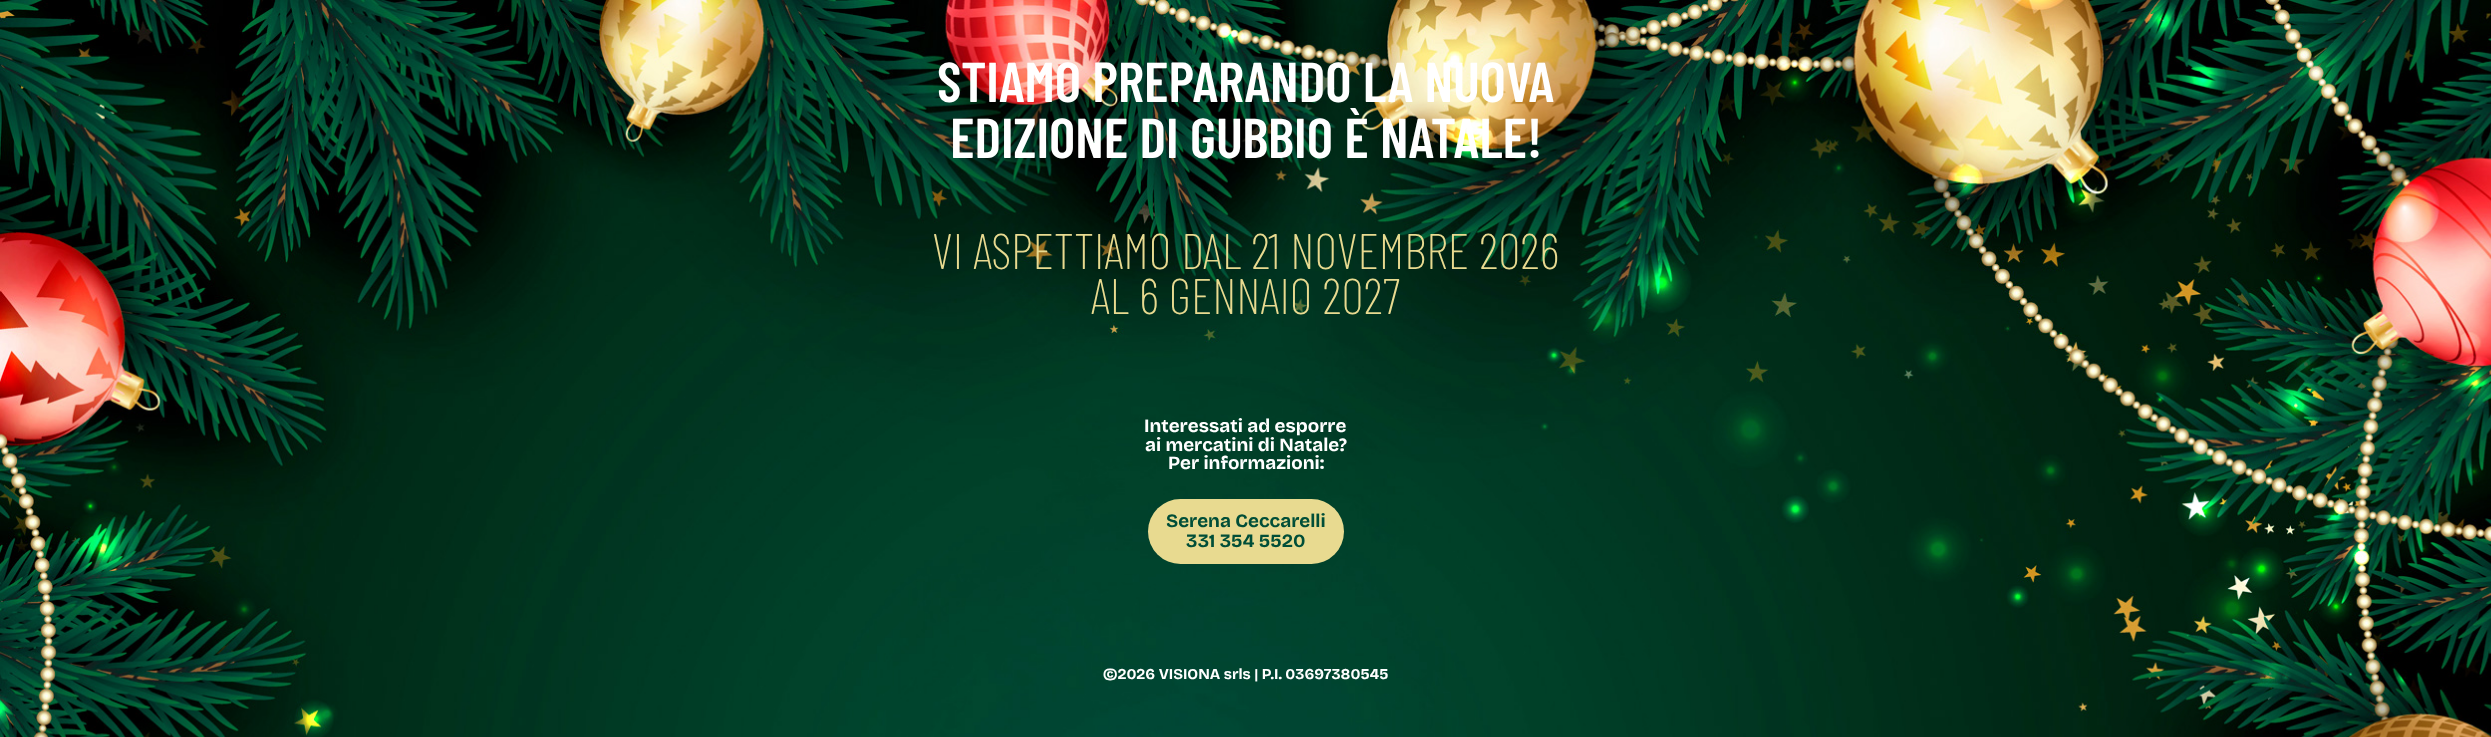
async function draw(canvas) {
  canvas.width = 2491;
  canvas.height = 737;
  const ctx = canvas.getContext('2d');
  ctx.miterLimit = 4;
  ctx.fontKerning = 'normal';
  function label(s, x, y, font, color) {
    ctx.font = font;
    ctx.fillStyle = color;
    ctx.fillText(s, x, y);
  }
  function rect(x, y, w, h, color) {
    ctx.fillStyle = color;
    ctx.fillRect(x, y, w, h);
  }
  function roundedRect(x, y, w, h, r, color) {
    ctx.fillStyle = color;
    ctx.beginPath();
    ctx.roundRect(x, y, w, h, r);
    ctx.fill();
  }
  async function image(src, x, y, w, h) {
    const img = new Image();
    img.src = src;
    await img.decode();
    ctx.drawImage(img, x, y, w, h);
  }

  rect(0, 0, 2491, 737, '#fff');
  await image('assets/img1.png', 0, 0, 2491, 737);
  label('STIAMO PREPARANDO LA NUOVA', 937, 102, '600 56.25px Barlow Condensed', '#fff');
  label('EDIZIONE DI GUBBIO È NATALE!', 950, 158, '600 56.25px Barlow Condensed', '#fff');
  label('VI ASPETTIAMO DAL 21 NOVEMBRE 2026', 932, 269, '200 50px Barlow Condensed', '#e8da90');
  label('AL 6 GENNAIO 2027', 1091, 314, '200 50px Barlow Condensed', '#e8da90');
  label('Interessati ad esporre', 1144, 432, '800 18.75px Bricolage Grotesque', '#fff');
  label('ai mercatini di Natale?', 1145, 451, '800 18.75px Bricolage Grotesque', '#fff');
  label('Per informazioni:', 1168, 469, '800 18.75px Bricolage Grotesque', '#fff');
  roundedRect(1148, 499, 196, 65, 32.5, '#e8da90');
  label('Serena Ceccarelli', 1166, 527, '800 18.75px Bricolage Grotesque', '#004e38');
  label('331 354 5520', 1186, 547, '800 18.75px Bricolage Grotesque', '#004e38');
  label('©2026 VISIONA srls | P.I. 03697380545', 1103, 679, '800 15px Bricolage Grotesque', '#fff');
}

draw(document.querySelector('canvas'));
